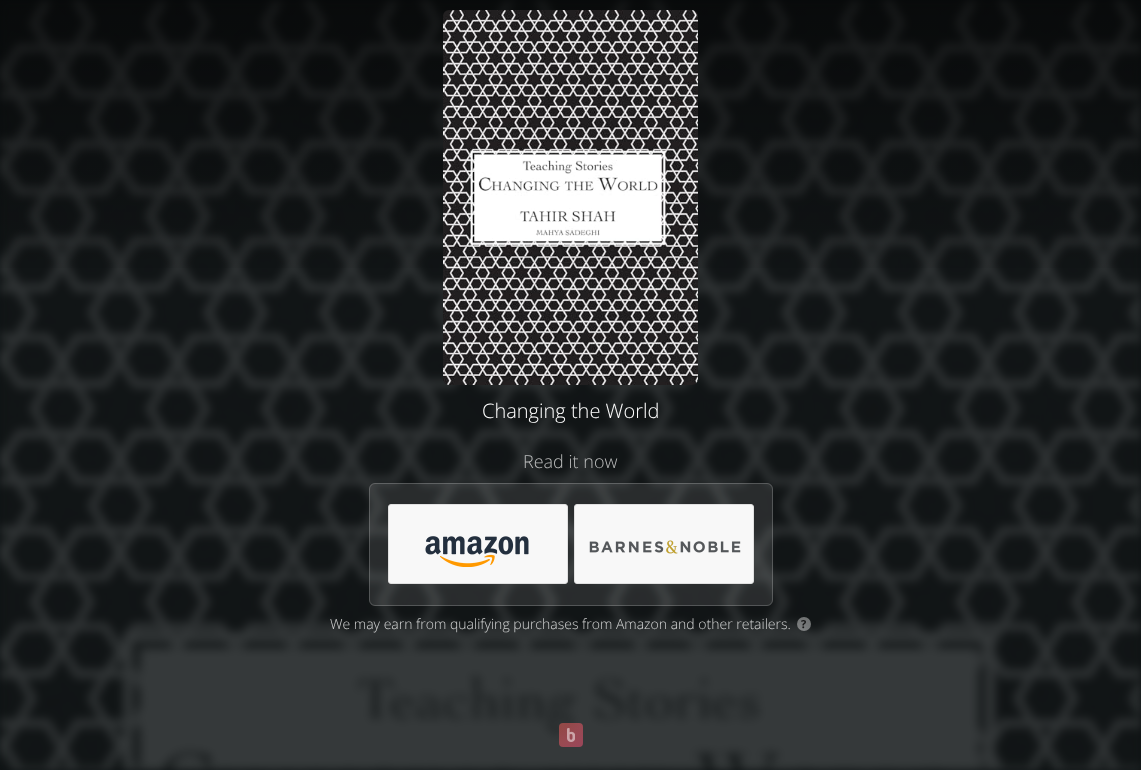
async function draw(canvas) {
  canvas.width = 1141;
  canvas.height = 770;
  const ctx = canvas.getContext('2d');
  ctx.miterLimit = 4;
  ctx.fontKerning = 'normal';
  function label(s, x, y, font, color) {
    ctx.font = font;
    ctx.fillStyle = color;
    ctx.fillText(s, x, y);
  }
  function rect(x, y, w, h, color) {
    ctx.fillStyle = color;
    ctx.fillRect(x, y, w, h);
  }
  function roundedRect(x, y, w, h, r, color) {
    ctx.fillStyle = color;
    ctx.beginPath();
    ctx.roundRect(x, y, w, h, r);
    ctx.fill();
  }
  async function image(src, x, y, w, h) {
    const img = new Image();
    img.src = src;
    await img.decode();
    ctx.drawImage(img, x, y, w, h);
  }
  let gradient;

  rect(0, 0, 1141, 770, '#0f1415');
  await image('assets/img1.png', 0, 0, 1141, 770);
  gradient = ctx.createLinearGradient(571, 0, 571, 300);
  gradient.addColorStop(0, '#00000080');
  gradient.addColorStop(1, '#00000000');
  ctx.fillStyle = gradient;
  ctx.fillRect(0, 0, 1141, 268);
  await image('assets/img2.png', 443, 10, 255, 375);
  label('Changing the World', 482, 418, '300 20px Open Sans', '#fff');
  label('Read it now', 523, 468, '300 18px Open Sans', '#babbbb');
  roundedRect(369, 483, 404, 123, 6, '#ffffff1a');
  ctx.beginPath();
  ctx.roundRect(369.5, 483.5, 403, 122, 5.5);
  ctx.strokeStyle = '#ffffff33';
  ctx.stroke();
  ctx.fillStyle = '#f8f8f8';
  ctx.beginPath();
  ctx.roundRect(388.5, 504.5, 179, 79, 2.5);
  ctx.fill();
  ctx.strokeStyle = '#e0e0e0';
  ctx.stroke();
  await image('assets/img3.png', 425, 536, 104, 31);
  ctx.beginPath();
  ctx.roundRect(574.5, 504.5, 179, 79, 2.5);
  ctx.fill();
  ctx.stroke();
  await image('assets/img4.png', 589, 540, 152, 14);
  label('We may earn from qualifying purchases from Amazon and other retailers.', 330, 629, '300 14px Open Sans', '#d3d4d4');
  ctx.fillStyle = '#ffffff66';
  ctx.beginPath();
  ctx.arc(804, 624, 7, 0, 2 * Math.PI);
  ctx.fill();
  label('?', 801, 628, 'bold 11px Open Sans', '#181818');
  gradient = ctx.createLinearGradient(559, 723, 583, 747);
  gradient.addColorStop(0, '#f9625980');
  gradient.addColorStop(1, '#ff537a80');
  ctx.fillStyle = gradient;
  ctx.beginPath();
  ctx.roundRect(559, 723, 24, 24, 4);
  ctx.fill();
  await image('assets/img5.png', 567, 728, 8, 14);
}

draw(document.querySelector('canvas'));
